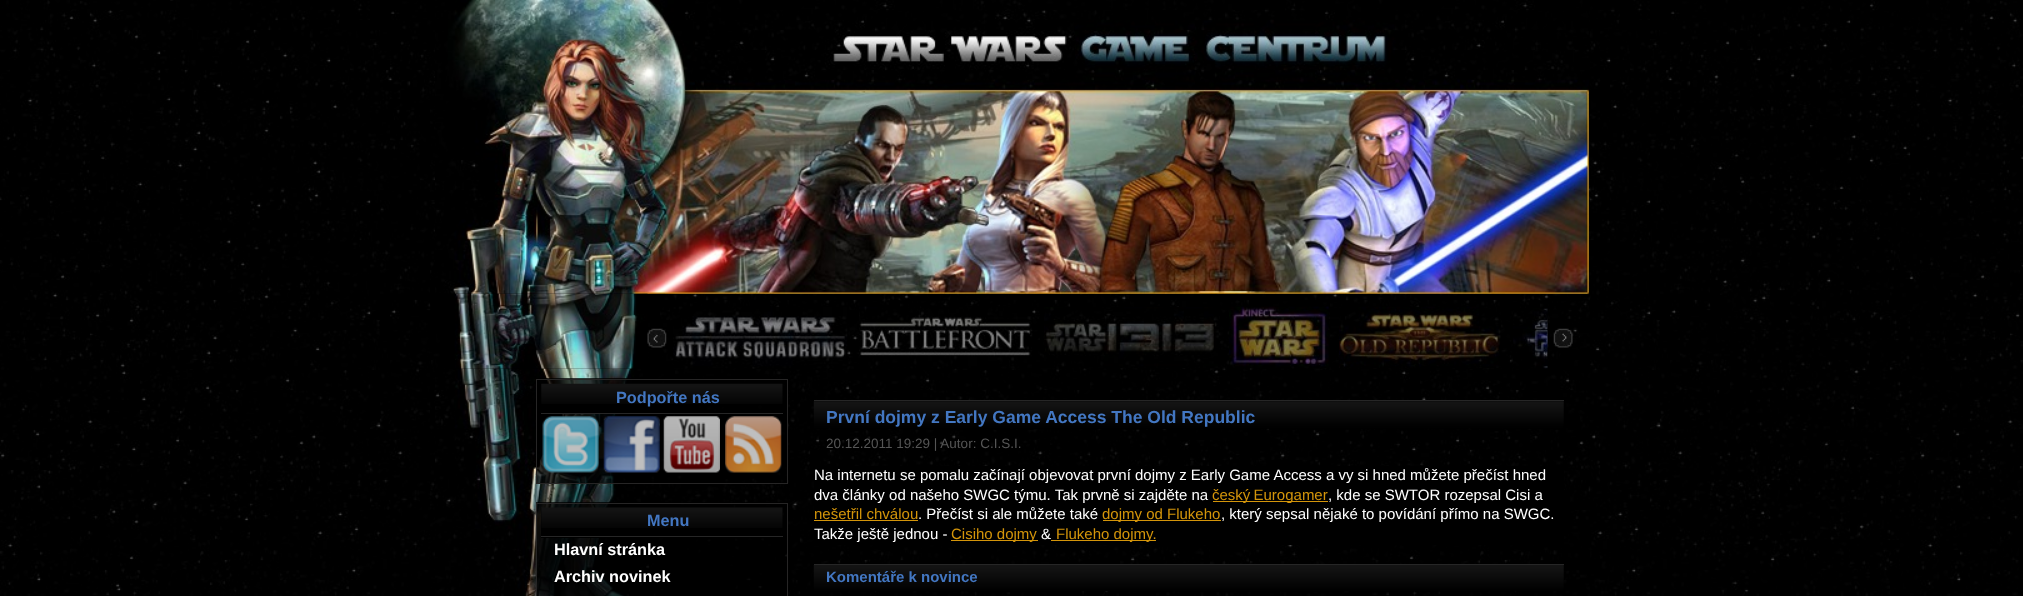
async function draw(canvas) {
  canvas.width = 2023;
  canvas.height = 596;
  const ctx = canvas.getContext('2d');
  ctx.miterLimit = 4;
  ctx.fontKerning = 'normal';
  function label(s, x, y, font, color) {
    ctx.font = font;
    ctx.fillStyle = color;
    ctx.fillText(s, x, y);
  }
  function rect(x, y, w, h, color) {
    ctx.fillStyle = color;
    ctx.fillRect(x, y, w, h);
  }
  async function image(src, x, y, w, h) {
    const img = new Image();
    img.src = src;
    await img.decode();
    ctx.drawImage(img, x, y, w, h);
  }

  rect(0, 0, 2023, 596, '#fff');
  await image('assets/img1.png', 0, 0, 2023, 596);
  await image('assets/img2.png', 435, 0, 1154, 294);
  await image('assets/img3.png', 440, 293, 208, 76);
  await image('assets/img4.png', 647, 328, 20, 20);
  await image('assets/img12.png', 435, 368, 353, 228);
  await image('assets/img5.png', 673, 306, 175, 63);
  await image('assets/img6.png', 859, 306, 174, 63);
  await image('assets/img7.png', 1044, 307, 175, 61);
  await image('assets/img8.png', 1229, 306, 100, 63);
  await image('assets/img9.png', 1339, 306, 162, 62);
  await image('assets/img10.png', 1513, 308, 35, 61);
  await image('assets/img11.png', 1553, 328, 20, 20);
  rect(536, 378, 251, 105, '#000000ba');
  ctx.strokeStyle = '#262525';
  ctx.strokeRect(536.5, 379.5, 251, 104);
  rect(548, 384, 147, 29, '#000');
  await image('assets/img13.png', 541, 383, 242, 21);
  rect(541, 413, 242, 1, '#262626');
  label('Podpořte nás', 616, 403, 'bold 16.25px Liberation Sans', '#4377c2');
  await image('assets/img14.png', 542, 416, 57, 57);
  await image('assets/img15.png', 603, 416, 57, 57);
  await image('assets/img16.png', 663, 416, 57, 57);
  await image('assets/img17.png', 725, 416, 57, 57);
  rect(536, 502, 252, 94, '#000000ba');
  ctx.strokeRect(536.5, 503.5, 251, 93);
  rect(541, 508, 240, 30, '#000');
  await image('assets/img18.png', 541, 507, 242, 21);
  rect(541, 536, 242, 1, '#262626');
  label('Menu', 647, 526, 'bold 16.25px Liberation Sans', '#4377c2');
  label('Hlavní stránka', 554, 555, 'bold 16.25px Liberation Sans', '#fff');
  label('Archiv novinek', 554, 582, 'bold 16.25px Liberation Sans', '#fff');
  await image('assets/img19.png', 813, 401, 751, 28);
  rect(814, 400, 750, 1, '#262626');
  label('První dojmy z Early Game Access The Old Republic', 826, 423, 'bold 17.5px Liberation Sans', '#4377c2');
  label('20.12.2011 19:29 | Autor: C.I.S.I.', 826, 448, '13.5px Liberation Sans', '#555');
  rect(814, 466, 750, 79, '#000');
  label('Na internetu se pomalu začínají objevovat první dojmy z Early Game Access a vy si hned můžete přečíst hned', 814, 480, '15px Liberation Sans', '#fff');
  label('dva články od našeho SWGC týmu. Tak prvně si zajděte na', 814, 500, '15px Liberation Sans', '#fff');
  rect(1213, 501, 115, 1, '#d4950a');
  ctx.wordSpacing = '-1px';
  label('český Eurogamer', 1212, 500, '15px Liberation Sans', '#d4950a');
  ctx.wordSpacing = '0px';
  label(', kde se SWTOR rozepsal Cisi a', 1328, 500, '15px Liberation Sans', '#fff');
  label('nešetřil chválou', 814, 519, '15px Liberation Sans', '#d4950a');
  rect(814, 520, 104, 1, '#d4950a');
  label('. Přečíst si ale můžete také', 918, 519, '15px Liberation Sans', '#fff');
  rect(1103, 520, 118, 1, '#d4950a');
  label('dojmy od Flukeho', 1102, 519, '15px Liberation Sans', '#d4950a');
  label(', který sepsal nějaké to povídání přímo na SWGC.', 1221, 519, '15px Liberation Sans', '#fff');
  label('Takže ještě jednou -', 814, 539, '15px Liberation Sans', '#fff');
  rect(951, 540, 87, 1, '#d4950a');
  label('Cisiho dojmy', 951, 539, '15px Liberation Sans', '#d4950a');
  label('&', 1041, 539, '15px Liberation Sans', '#fff');
  rect(1051, 540, 105, 1, '#d4950a');
  label('Flukeho dojmy.', 1056, 539, '15px Liberation Sans', '#d4950a');
  await image('assets/img20.png', 813, 565, 751, 27);
  rect(814, 564, 750, 1, '#262626');
  label('Komentáře k novince', 826, 582, 'bold 15px Liberation Sans', '#4377c2');
}

draw(document.querySelector('canvas'));
